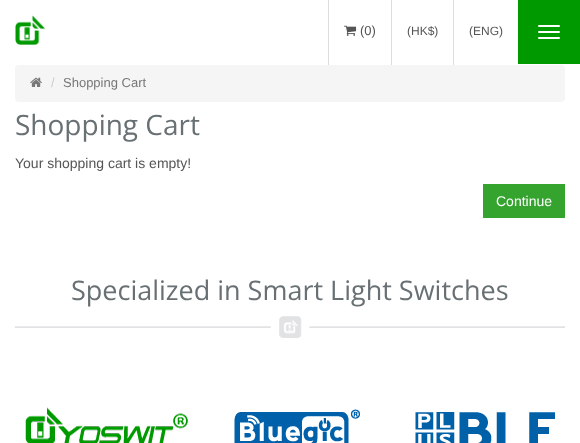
async function draw(canvas) {
  canvas.width = 580;
  canvas.height = 443;
  const ctx = canvas.getContext('2d');
  ctx.miterLimit = 4;
  ctx.fontKerning = 'normal';
  function label(s, x, y, font, color) {
    ctx.font = font;
    ctx.fillStyle = color;
    ctx.fillText(s, x, y);
  }
  function rect(x, y, w, h, color) {
    ctx.fillStyle = color;
    ctx.fillRect(x, y, w, h);
  }
  function roundedRect(x, y, w, h, r, color) {
    ctx.fillStyle = color;
    ctx.beginPath();
    ctx.roundRect(x, y, w, h, r);
    ctx.fill();
  }
  async function image(src, x, y, w, h) {
    const img = new Image();
    img.src = src;
    await img.decode();
    ctx.drawImage(img, x, y, w, h);
  }

  rect(0, 0, 580, 443, '#fff');
  await image('assets/img1.png', 15, 15, 30, 30);
  rect(328, 0, 1, 65, '#ddd');
  await image('assets/img2.png', 344, 25, 13, 11);
  label('(0)', 360, 35, '13px Liberation Sans', '#555');
  rect(391, 0, 1, 65, '#ddd');
  label('(HK$)', 407, 35, '12px Liberation Sans', '#555');
  rect(453, 0, 1, 65, '#ddd');
  label('(ENG)', 469, 35, '12px Liberation Sans', '#555');
  rect(518, 0, 62, 64, '#090');
  roundedRect(538, 25, 22, 2, 1, '#fff');
  roundedRect(538, 31, 22, 2, 1, '#fff');
  roundedRect(538, 37, 22, 2, 1, '#fff');
  roundedRect(15, 65, 550, 37, 4, '#f5f5f5');
  await image('assets/img3.png', 30, 77, 12, 10);
  label('/', 51, 87, '13px Liberation Sans', '#ccc');
  label('Shopping Cart', 63, 87, '13px Liberation Sans', '#777');
  label('Shopping Cart', 15, 135, '28px Open Sans', '#687074');
  label('Your shopping cart is empty!', 15, 168, '14px Liberation Sans', '#555');
  rect(483, 184, 82, 34, '#35a42f');
  label('Continue', 496, 206, '14px Liberation Sans', '#fff');
  label('Specialized in Smart Light Switches', 71, 300, '27px Open Sans', '#687074');
  await image('assets/img4.png', 15, 316, 550, 22);
  await image('assets/img5.png', 25, 407, 163, 36);
  await image('assets/img6.png', 234, 409, 126, 34);
  await image('assets/img7.png', 415, 412, 140, 31);
}

draw(document.querySelector('canvas'));
